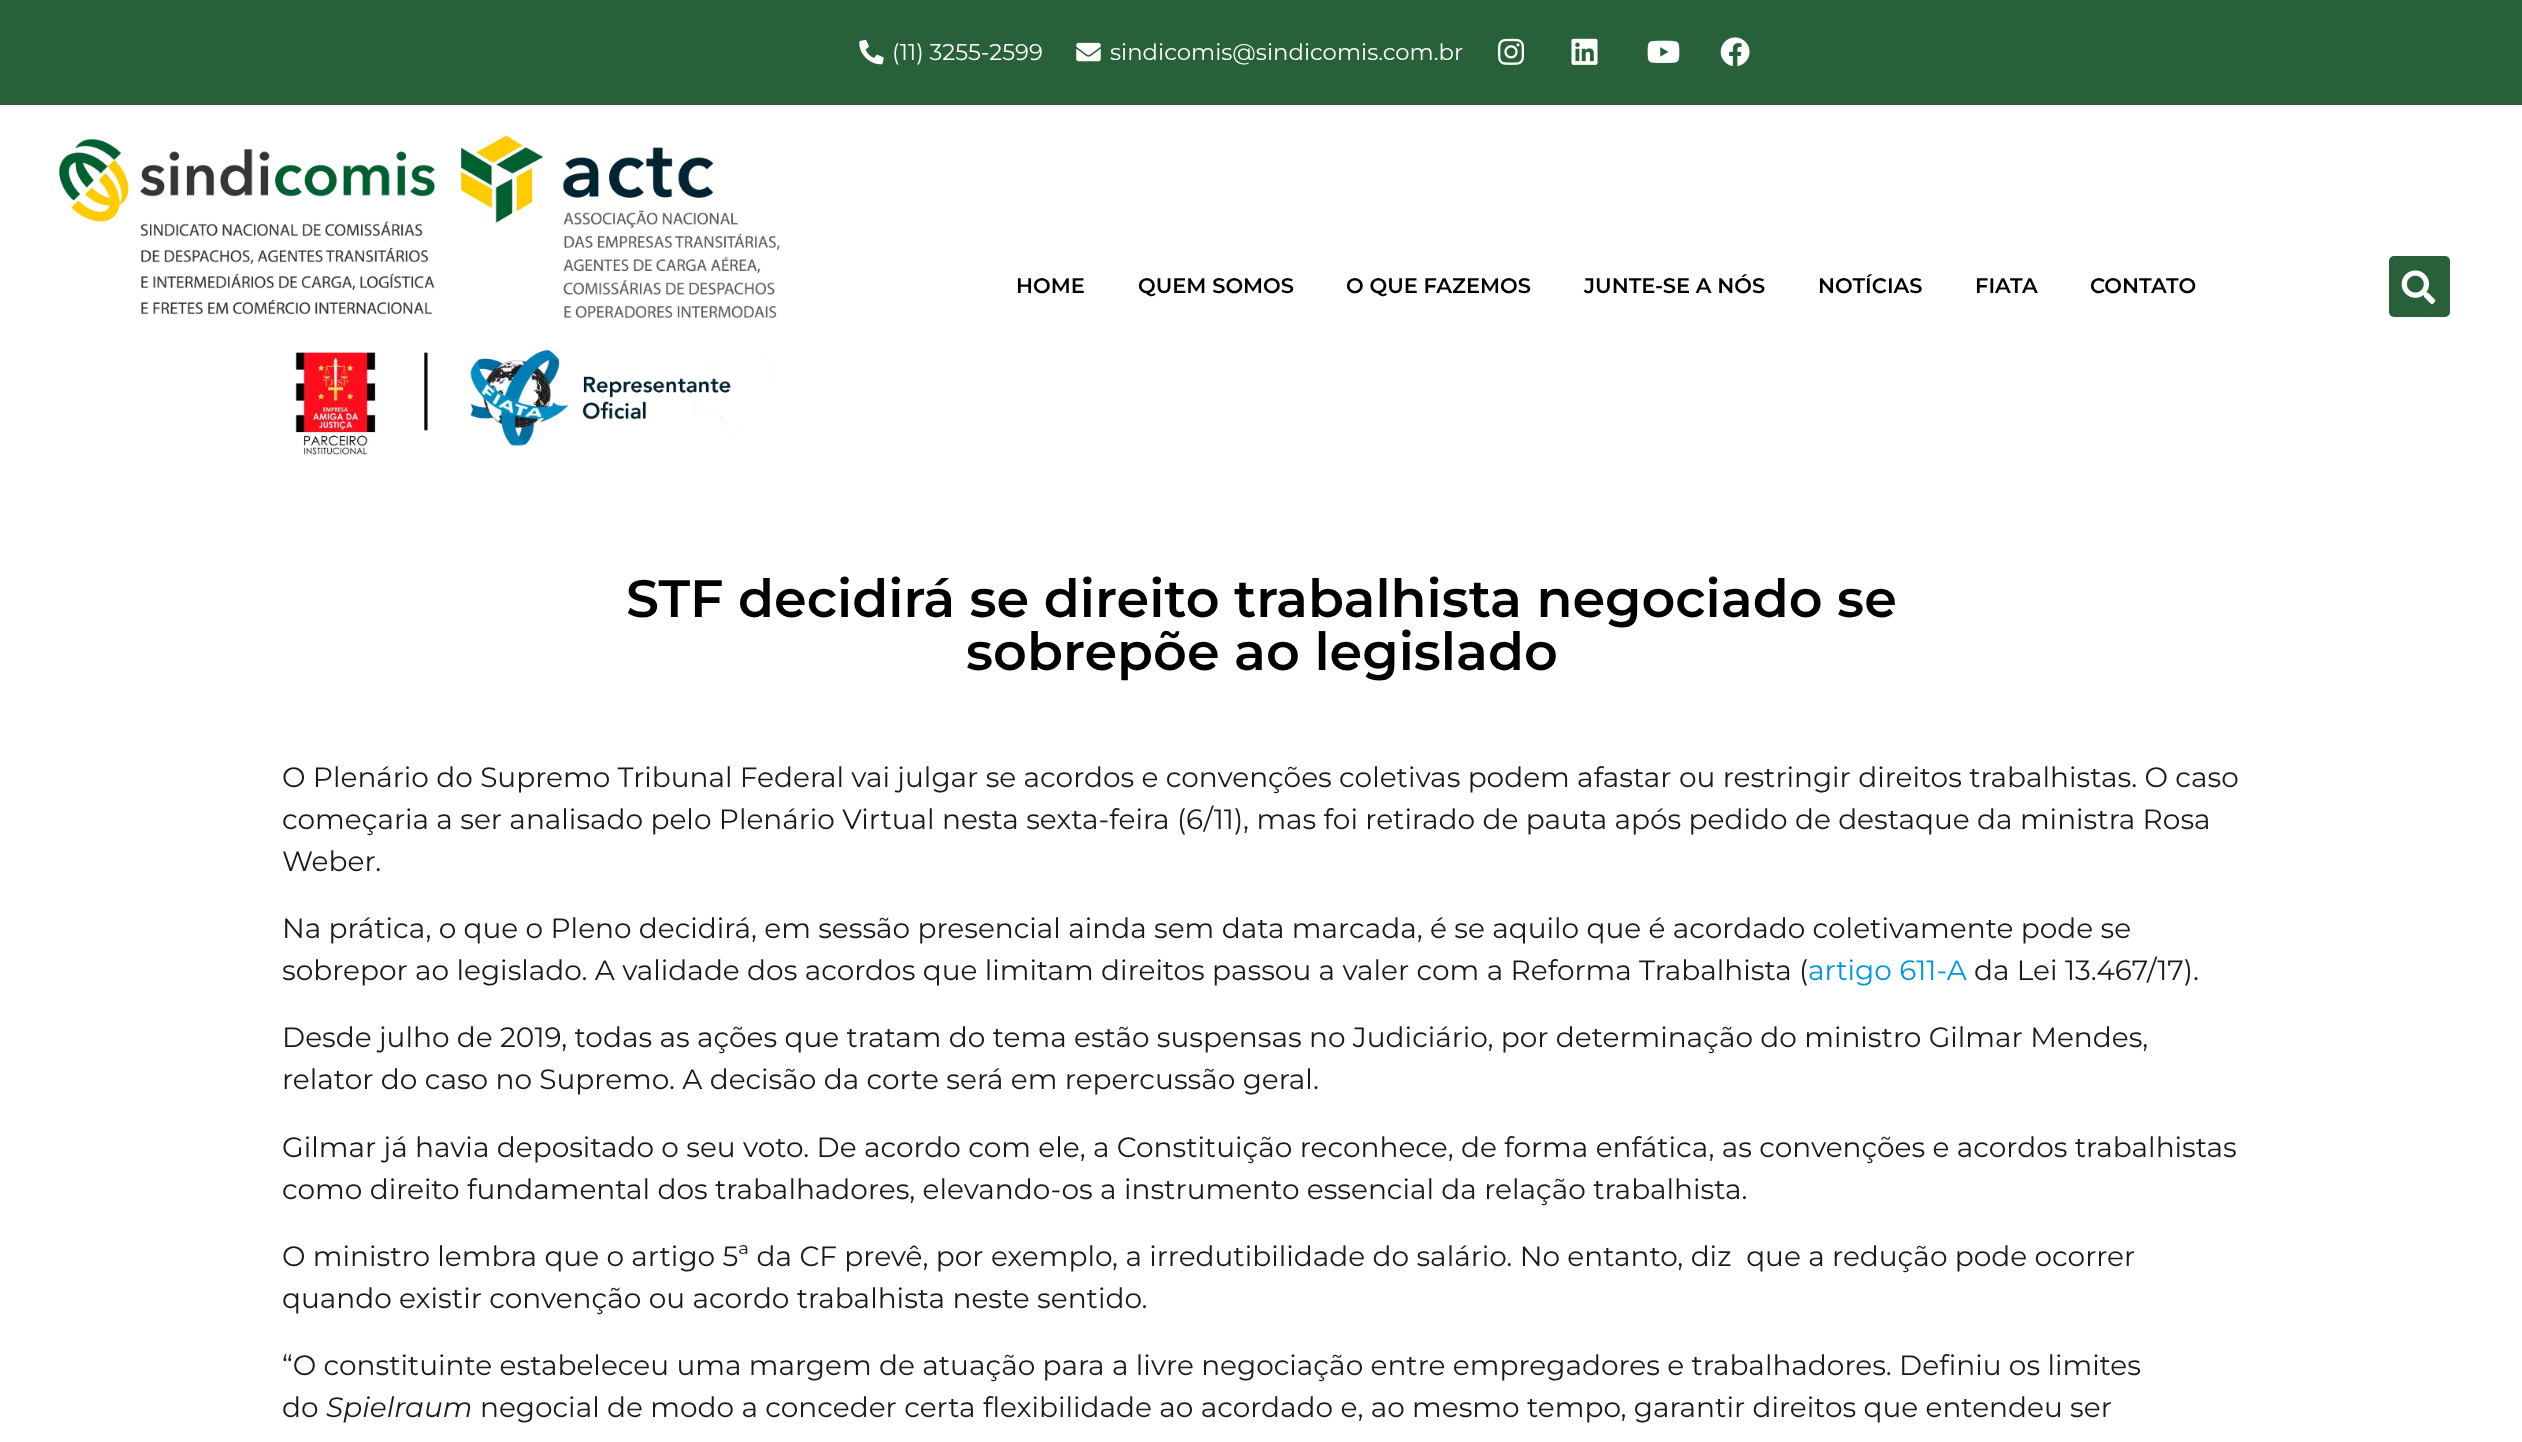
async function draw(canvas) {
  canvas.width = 2522;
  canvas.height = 1442;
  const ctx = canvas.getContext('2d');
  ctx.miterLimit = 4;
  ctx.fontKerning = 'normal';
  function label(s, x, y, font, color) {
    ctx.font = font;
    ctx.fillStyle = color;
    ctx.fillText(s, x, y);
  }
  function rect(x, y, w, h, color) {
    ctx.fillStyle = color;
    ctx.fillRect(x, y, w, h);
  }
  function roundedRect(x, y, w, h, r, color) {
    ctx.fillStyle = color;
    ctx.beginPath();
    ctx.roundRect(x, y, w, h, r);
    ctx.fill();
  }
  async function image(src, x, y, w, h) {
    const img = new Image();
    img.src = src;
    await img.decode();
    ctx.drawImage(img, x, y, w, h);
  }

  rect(0, 0, 2522, 1442, '#fff');
  rect(0, 0, 2522, 105, '#28603a');
  await image('assets/img1.png', 859, 39, 25, 26);
  label('(11) 3255-2599', 892, 60, '22.75px Montserrat', '#fff');
  await image('assets/img2.png', 1076, 42, 25, 20);
  label('sindicomis@sindicomis.com.br', 1110, 60, '22.75px Montserrat', '#fff');
  await image('assets/img3.png', 1498, 38, 27, 27);
  await image('assets/img4.png', 1571, 38, 27, 27);
  await image('assets/img5.png', 1647, 40, 33, 23);
  await image('assets/img6.png', 1720, 37, 30, 29);
  await image('assets/img7.png', 59, 135, 721, 320);
  label('HOME', 1016, 293, '600 21px Montserrat', '#000');
  label('QUEM SOMOS', 1138, 293, '600 21px Montserrat', '#000');
  label('O QUE FAZEMOS', 1346, 293, '600 21px Montserrat', '#000');
  label('JUNTE-SE A NÓS', 1584, 293, '600 21px Montserrat', '#000');
  label('NOTÍCIAS', 1818, 293, '600 21px Montserrat', '#000');
  label('FIATA', 1975, 293, '600 21px Montserrat', '#000');
  label('CONTATO', 2090, 293, '600 21px Montserrat', '#000');
  roundedRect(2389, 256, 61, 61, 5, '#28603a');
  await image('assets/img8.png', 2401, 270, 35, 35);
  label('STF decidirá se direito trabalhista negociado se', 626, 617, '600 52.5px Montserrat', '#000');
  label('sobrepõe ao legislado', 966, 670, '600 52.5px Montserrat', '#000');
  label('O Plenário do Supremo Tribunal Federal vai julgar se acordos e convenções coletivas podem afastar ou restringir direitos trabalhistas. O caso', 282, 787, '28px Montserrat', '#1a1a1a');
  label('começaria a ser analisado pelo Plenário Virtual nesta sexta-feira (6/11), mas foi retirado de pauta após pedido de destaque da ministra Rosa', 282, 829, '28px Montserrat', '#1a1a1a');
  label('Weber.', 282, 871, '28px Montserrat', '#1a1a1a');
  label('Na prática, o que o Pleno decidirá, em sessão presencial ainda sem data marcada, é se aquilo que é acordado coletivamente pode se', 282, 938, '28px Montserrat', '#1a1a1a');
  label('sobrepor ao legislado. A validade dos acordos que limitam direitos passou a valer com a Reforma Trabalhista (', 282, 980, '28px Montserrat', '#1a1a1a');
  label('artigo 611-A', 1808, 980, '28px Montserrat', '#0096df');
  label('da Lei 13.467/17).', 1974, 980, '28px Montserrat', '#1a1a1a');
  label('Desde julho de 2019, todas as ações que tratam do tema estão suspensas no Judiciário, por determinação do ministro Gilmar Mendes,', 282, 1047, '28px Montserrat', '#1a1a1a');
  label('relator do caso no Supremo. A decisão da corte será em repercussão geral.', 282, 1089, '28px Montserrat', '#1a1a1a');
  label('Gilmar já havia depositado o seu voto. De acordo com ele, a Constituição reconhece, de forma enfática, as convenções e acordos trabalhistas', 282, 1157, '28px Montserrat', '#1a1a1a');
  label('como direito fundamental dos trabalhadores, elevando-os a instrumento essencial da relação trabalhista.', 282, 1199, '28px Montserrat', '#1a1a1a');
  label('O ministro lembra que o artigo 5ª da CF prevê, por exemplo, a irredutibilidade do salário. No entanto, diz  que a redução pode ocorrer', 282, 1266, '28px Montserrat', '#1a1a1a');
  label('quando existir convenção ou acordo trabalhista neste sentido.', 282, 1308, '28px Montserrat', '#1a1a1a');
  label('“O constituinte estabeleceu uma margem de atuação para a livre negociação entre empregadores e trabalhadores. Definiu os limites', 282, 1375, '28px Montserrat', '#1a1a1a');
  label('do', 282, 1417, '28px Montserrat', '#1a1a1a');
  label('Spielraum', 326, 1417, 'italic 28px Montserrat', '#1a1a1a');
  label('negocial de modo a conceder certa flexibilidade ao acordado e, ao mesmo tempo, garantir direitos que entendeu ser', 480, 1417, '28px Montserrat', '#1a1a1a');
}

draw(document.querySelector('canvas'));
